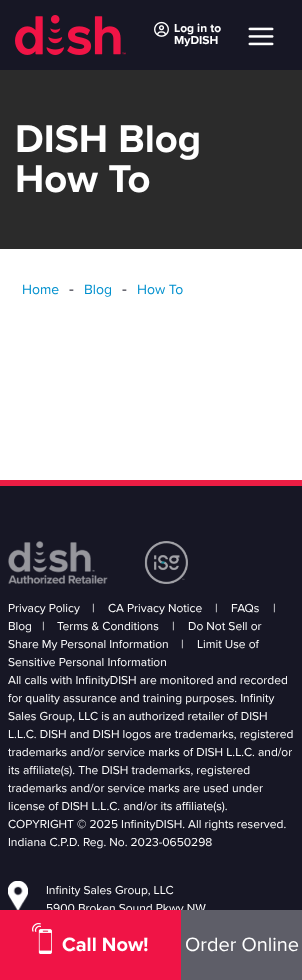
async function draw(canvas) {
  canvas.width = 302;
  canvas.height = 980;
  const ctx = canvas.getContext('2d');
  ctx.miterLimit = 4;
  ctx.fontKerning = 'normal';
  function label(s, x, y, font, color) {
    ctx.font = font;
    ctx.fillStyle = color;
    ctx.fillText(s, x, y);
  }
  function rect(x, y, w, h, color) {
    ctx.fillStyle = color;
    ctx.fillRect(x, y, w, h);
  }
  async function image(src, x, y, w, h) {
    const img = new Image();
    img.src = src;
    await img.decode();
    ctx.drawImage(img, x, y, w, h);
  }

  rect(0, 0, 302, 980, '#fff');
  rect(0, 0, 302, 70, '#171725');
  await image('assets/img1.png', 15, 15, 111, 40);
  await image('assets/img2.png', 248, 27, 26, 19);
  await image('assets/img3.png', 154, 21, 15, 16);
  label('Log in to', 174, 32, 'bold 12px Proxima Nova', '#fff');
  label('MyDISH', 174, 44, 'bold 12px Proxima Nova', '#fff');
  rect(0, 70, 302, 179, '#2b2b2b');
  label('DISH Blog', 15, 152, 'bold 40px Proxima Nova', '#fff');
  label('How To', 15, 192, 'bold 40px Proxima Nova', '#fff');
  label('Home', 22, 294, '14px Proxima Nova', '#0090ce');
  label('-', 69, 294, '16px Proxima Nova', '#171725');
  label('Blog', 84, 294, '14px Proxima Nova', '#0090ce');
  label('-', 122, 294, '16px Proxima Nova', '#171725');
  label('How To', 137, 294, '14px Proxima Nova', '#0090ce');
  rect(0, 486, 302, 424, '#171725');
  rect(0, 480, 302, 6, '#ec1d44');
  await image('assets/img4.png', 8, 541, 180, 43);
  label('Privacy Policy', 8, 612, '12px Proxima Nova', '#fff');
  label('|', 92, 612, '12px Proxima Nova', '#fff');
  label('CA Privacy Notice', 108, 612, '12px Proxima Nova', '#fff');
  label('|', 215, 612, '12px Proxima Nova', '#fff');
  label('FAQs', 231, 612, '12px Proxima Nova', '#fff');
  label('|', 273, 612, '12px Proxima Nova', '#fff');
  label('Blog', 8, 630, '12px Proxima Nova', '#fff');
  label('|', 42, 630, '12px Proxima Nova', '#fff');
  label('Terms & Conditions', 57, 630, '12px Proxima Nova', '#fff');
  label('|', 172, 630, '12px Proxima Nova', '#fff');
  label('Do Not Sell or', 188, 630, '12px Proxima Nova', '#fff');
  label('Share My Personal Information', 8, 648, '12px Proxima Nova', '#fff');
  label('|', 181, 648, '12px Proxima Nova', '#fff');
  label('Limit Use of', 197, 648, '12px Proxima Nova', '#fff');
  label('Sensitive Personal Information', 8, 666, '12px Proxima Nova', '#fff');
  label('All calls with InfinityDISH are monitored and recorded', 8, 684, '12px Proxima Nova', '#fff');
  label('for quality assurance and training purposes. Infinity', 8, 702, '12px Proxima Nova', '#fff');
  label('Sales Group, LLC is an authorized retailer of DISH', 8, 720, '12px Proxima Nova', '#fff');
  label('L.L.C. DISH and DISH logos are trademarks, registered', 8, 738, '12px Proxima Nova', '#fff');
  label('trademarks and/or service marks of DISH L.L.C. and/or', 8, 756, '12px Proxima Nova', '#fff');
  label('its affiliate(s). The DISH trademarks, registered', 8, 774, '12px Proxima Nova', '#fff');
  label('trademarks and/or service marks are used under', 8, 792, '12px Proxima Nova', '#fff');
  label('license of DISH L.L.C. and/or its affiliate(s).', 8, 810, '12px Proxima Nova', '#fff');
  label('COPYRIGHT © 2025 InfinityDISH. All rights reserved.', 8, 828, '12px Proxima Nova', '#fff');
  label('Indiana C.P.D. Reg. No. 2023-0650298', 8, 846, '12px Proxima Nova', '#fff');
  await image('assets/img5.png', 8, 881, 20, 29);
  label('Infinity Sales Group, LLC', 46, 894, '12px Proxima Nova', '#fff');
  label('5900 Broken Sound Pkwy NW', 46, 912, '12px Proxima Nova', '#fff');
  rect(0, 910, 181, 70, '#f01446');
  await image('assets/img6.png', 32, 923, 20, 31);
  label('Call Now!', 62, 951, 'bold 20px Proxima Nova', '#fff');
  rect(181, 910, 121, 70, '#5e5e68');
  label('Order Online', 185, 951, '20px Proxima Nova', '#fff');
}

draw(document.querySelector('canvas'));
